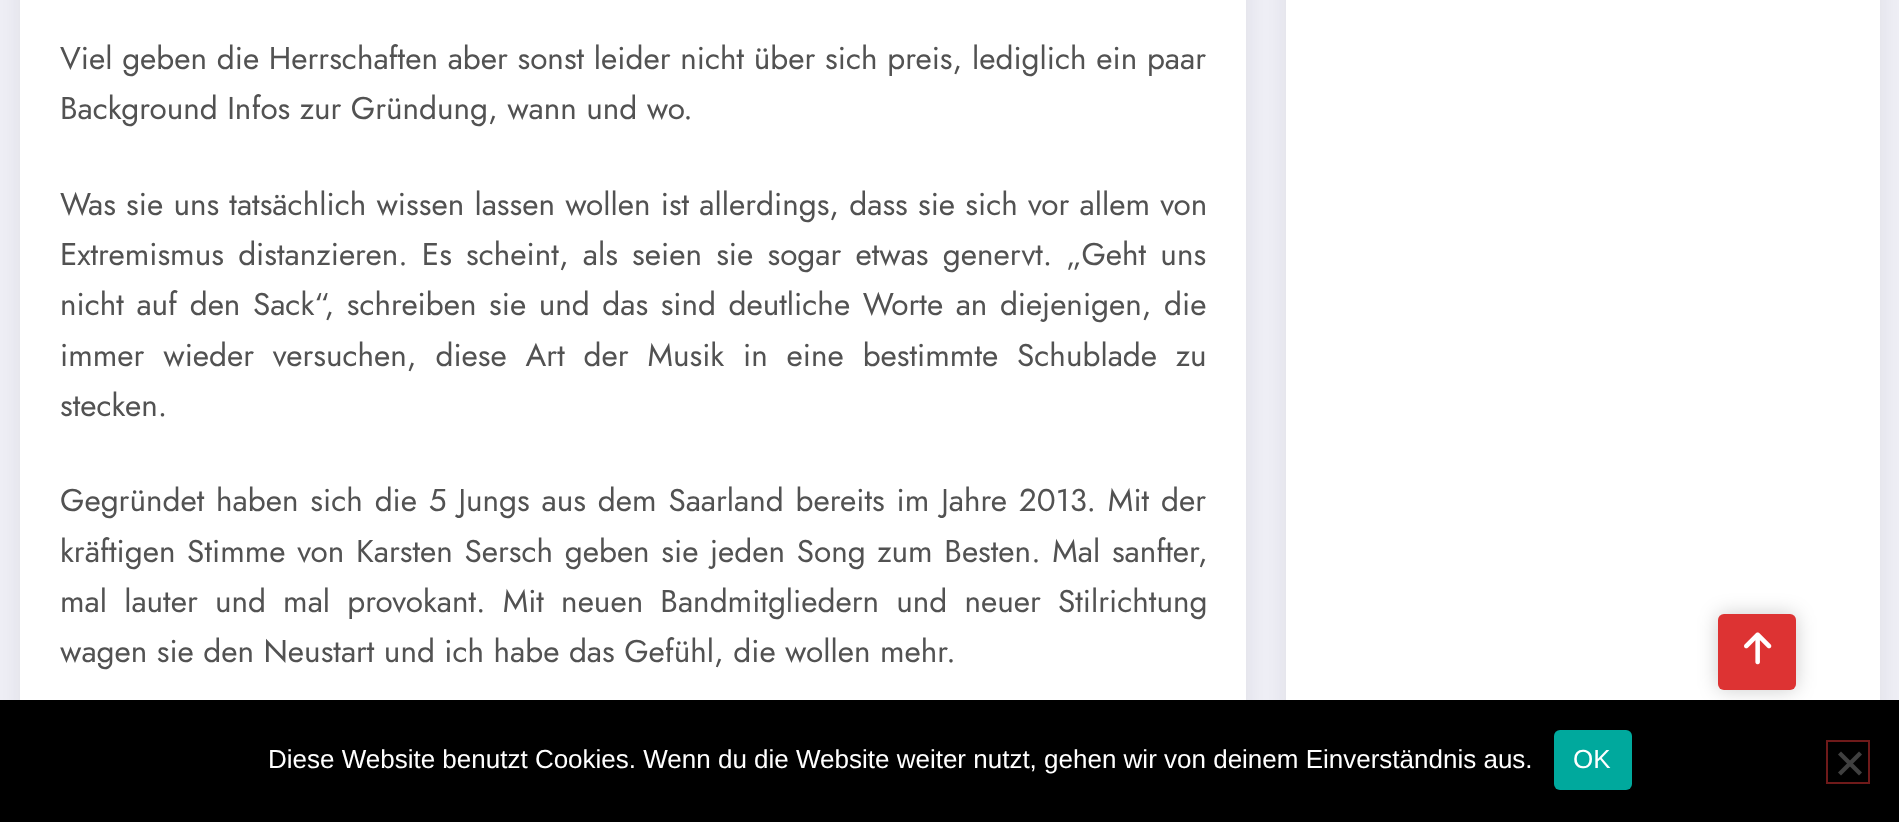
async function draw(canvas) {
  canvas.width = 1899;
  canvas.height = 822;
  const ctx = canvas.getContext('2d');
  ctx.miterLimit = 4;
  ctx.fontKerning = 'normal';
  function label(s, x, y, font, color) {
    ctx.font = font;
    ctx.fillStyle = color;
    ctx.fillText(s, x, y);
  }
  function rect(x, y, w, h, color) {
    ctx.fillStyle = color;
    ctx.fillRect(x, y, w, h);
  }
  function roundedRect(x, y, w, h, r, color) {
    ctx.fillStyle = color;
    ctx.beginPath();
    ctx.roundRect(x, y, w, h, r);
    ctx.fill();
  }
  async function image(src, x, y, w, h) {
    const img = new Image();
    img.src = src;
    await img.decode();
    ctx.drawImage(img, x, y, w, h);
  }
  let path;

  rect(0, 0, 1899, 822, '#eeeef5');
  ctx.fillStyle = '#1717230d';
  ctx.filter = 'blur(8px)';
  ctx.beginPath();
  ctx.rect(16, -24, 1234, 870);
  ctx.fill();
  ctx.filter = 'none';
  rect(20, 0, 1226, 700, '#fff');
  ctx.wordSpacing = '0.25px';
  label('Viel geben die Herrschaften aber sonst leider nicht über sich preis, lediglich ein paar', 60, 69, '31.5px Jost', '#525252');
  ctx.wordSpacing = '0px';
  label('Background Infos zur Gründung, wann und wo.', 60, 119, '31.5px Jost', '#525252');
  ctx.wordSpacing = '0.75px';
  label('Was sie uns tatsächlich wissen lassen wollen ist allerdings, dass sie sich vor allem von', 60, 215, '31.5px Jost', '#525252');
  ctx.wordSpacing = '4.75px';
  label('Extremismus distanzieren. Es scheint, als seien sie sogar etwas genervt. „Geht uns', 60, 265, '31.5px Jost', '#525252');
  ctx.wordSpacing = '3.1px';
  label('nicht auf den Sack“, schreiben sie und das sind deutliche Worte an diejenigen, die', 60, 315, '31.5px Jost', '#525252');
  ctx.wordSpacing = '9.4px';
  label('immer wieder versuchen, diese Art der Musik in eine bestimmte Schublade zu', 60, 366, '31.5px Jost', '#525252');
  ctx.wordSpacing = '0px';
  label('stecken.', 60, 416, '31.5px Jost', '#525252');
  ctx.wordSpacing = '2.4px';
  label('Gegründet haben sich die 5 Jungs aus dem Saarland bereits im Jahre 2013. Mit der', 60, 511, '31.5px Jost', '#525252');
  ctx.wordSpacing = '2.25px';
  label('kräftigen Stimme von Karsten Sersch geben sie jeden Song zum Besten. Mal sanfter,', 60, 562, '31.5px Jost', '#525252');
  ctx.wordSpacing = '7.75px';
  label('mal lauter und mal provokant. Mit neuen Bandmitgliedern und neuer Stilrichtung', 60, 612, '31.5px Jost', '#525252');
  ctx.wordSpacing = '0px';
  label('wagen sie den Neustart und ich habe das Gefühl, die wollen mehr.', 60, 662, '31.5px Jost', '#525252');
  ctx.fillStyle = '#1717230d';
  ctx.filter = 'blur(8px)';
  ctx.beginPath();
  ctx.roundRect(1282, -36, 602, 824, 12);
  ctx.fill();
  ctx.filter = 'none';
  rect(1286, 0, 594, 700, '#fff');
  ctx.fillStyle = '#00000033';
  ctx.filter = 'blur(10px)';
  ctx.beginPath();
  ctx.roundRect(1718, 614, 78, 76, 6);
  ctx.fill();
  ctx.filter = 'none';
  roundedRect(1718, 614, 78, 76, 6, '#d33');
  await image('assets/img1.png', 1744, 632, 28, 33);
  rect(0, 700, 1899, 122, '#000');
  label('Diese Website benutzt Cookies. Wenn du die Website weiter nutzt, gehen wir von deinem Einverständnis aus.', 268, 768, '26px Liberation Sans', '#fff');
  roundedRect(1554, 730, 78, 60, 6, '#00a99d');
  label('OK', 1573, 768, '26px Liberation Sans', '#fff');
  ctx.strokeStyle = '#6f1a1a';
  ctx.lineWidth = 2;
  ctx.strokeRect(1827, 741, 42, 42);
  ctx.fillStyle = '#404040';
  path = new Path2D('M1859 751.5L1862 754.5L1841 775.5L1838 772.5Z');
  ctx.fill(path);
  path = new Path2D('M1838 754.5L1841 751.5L1862 772.5L1859 775.5Z');
  ctx.fill(path);
}

draw(document.querySelector('canvas'));
